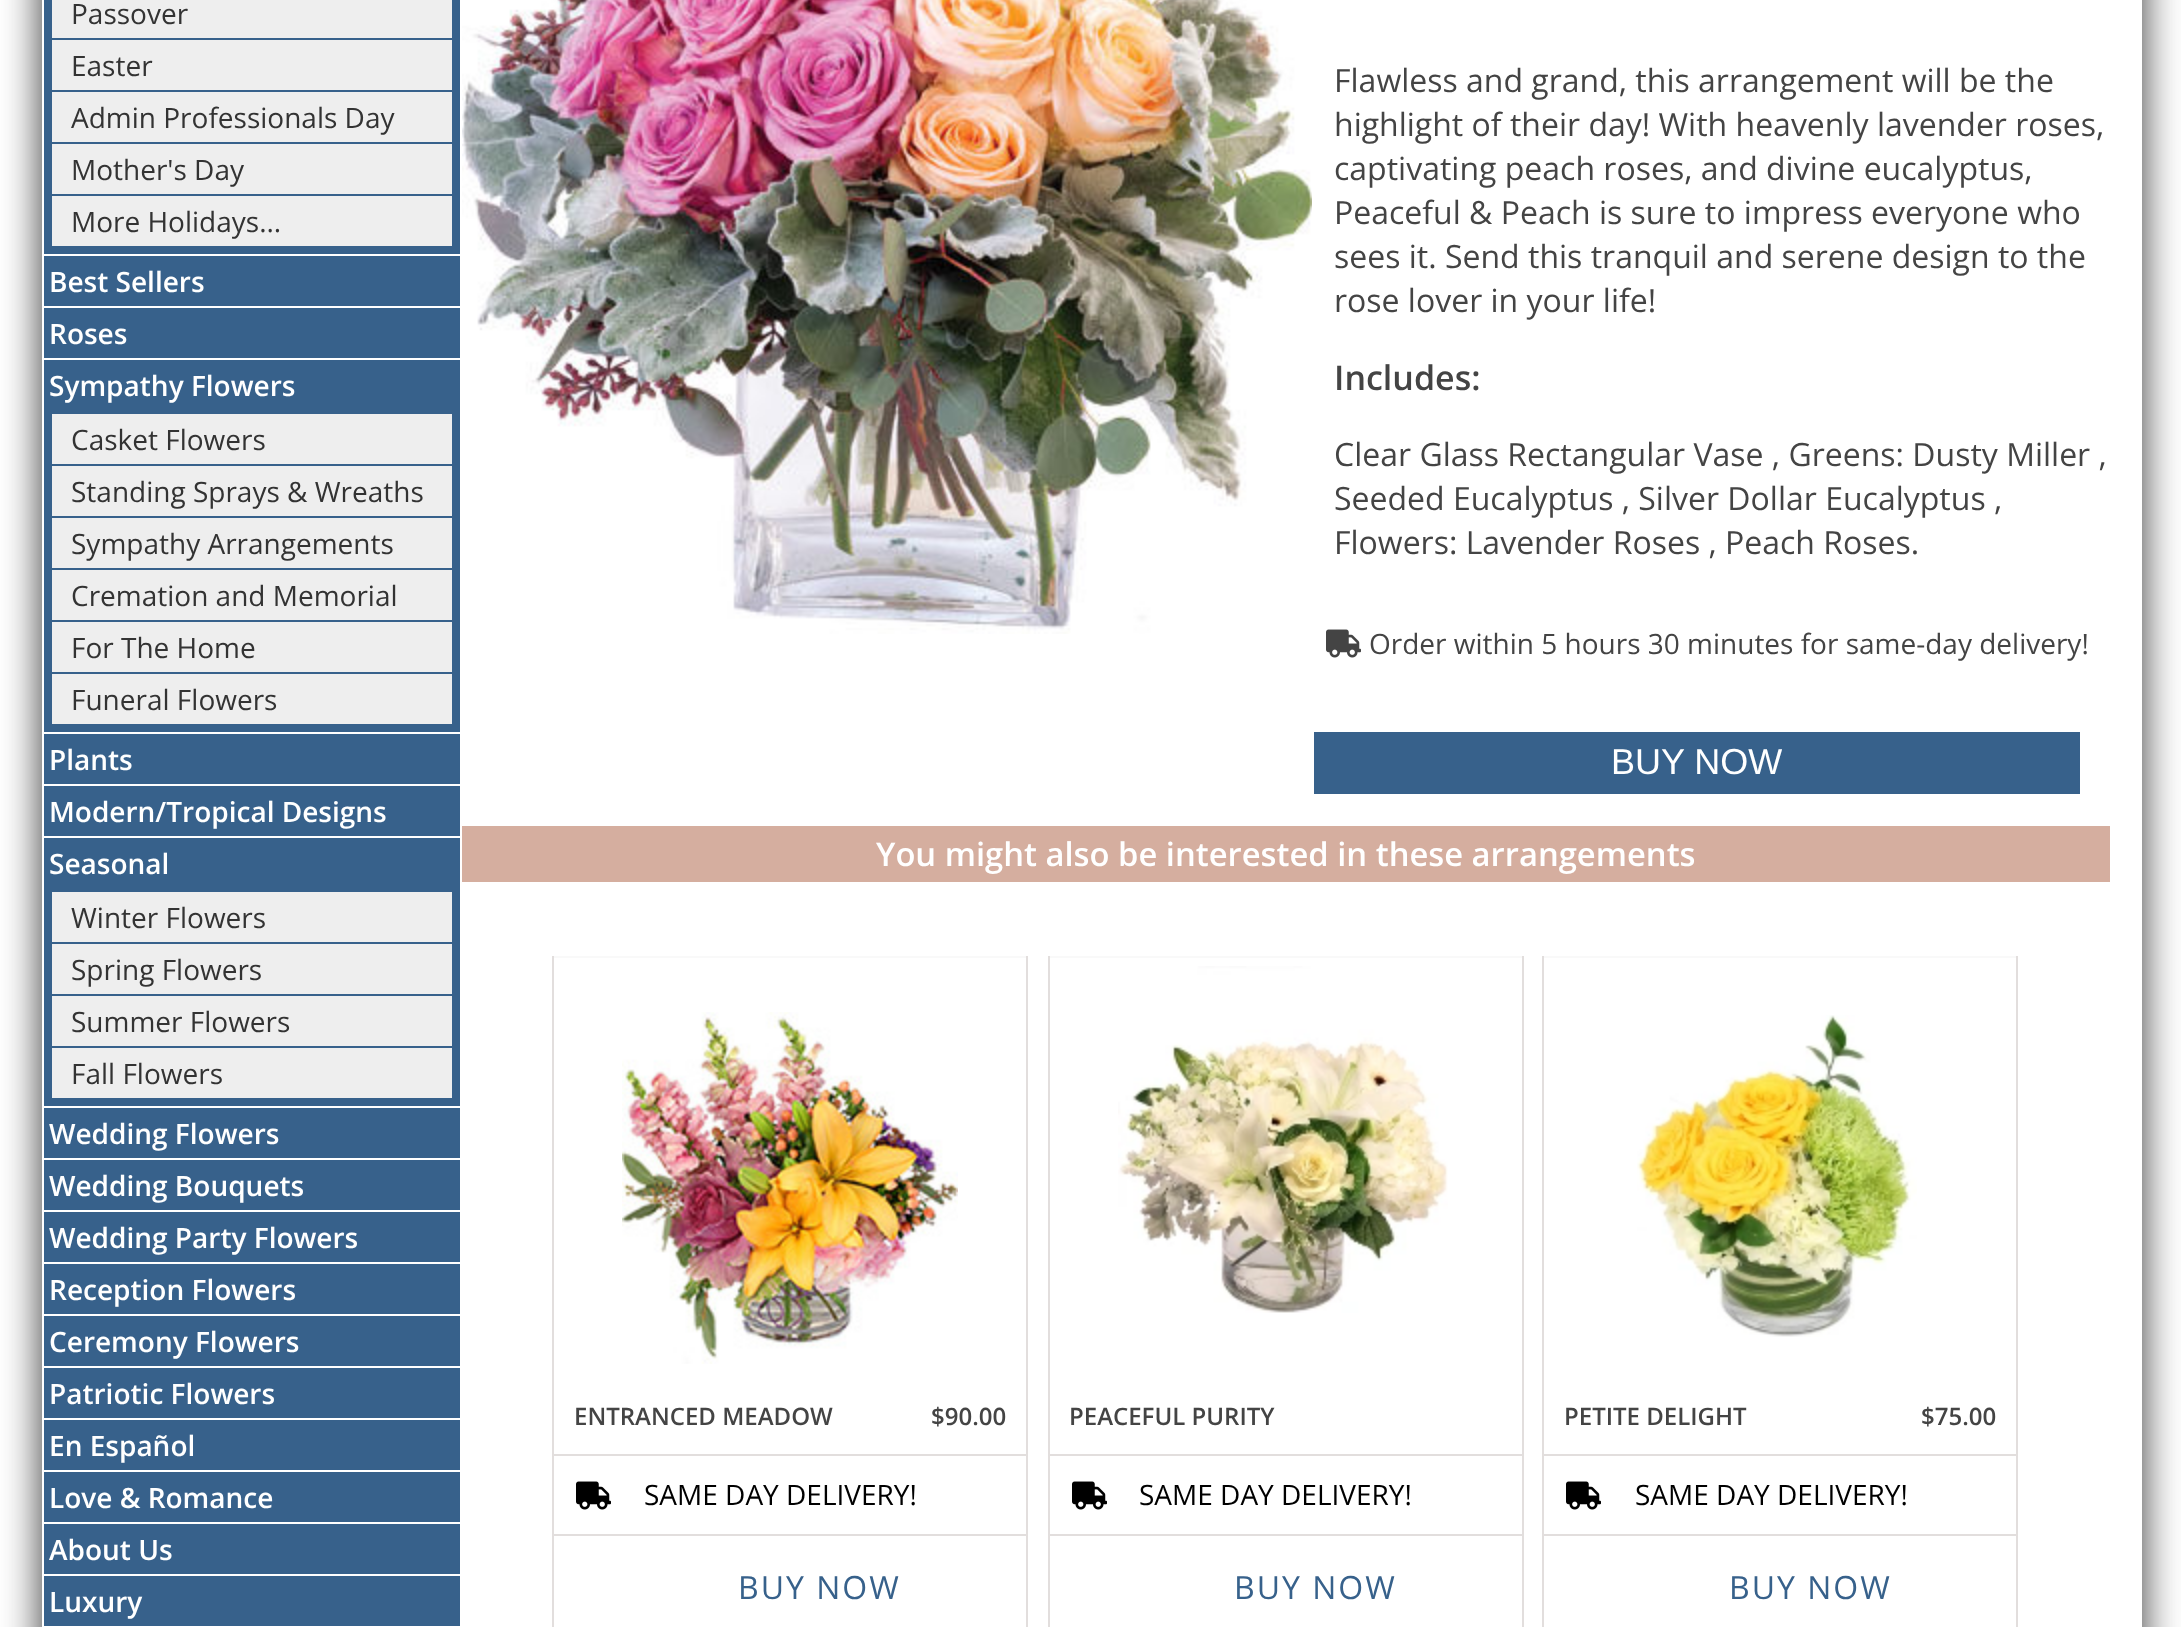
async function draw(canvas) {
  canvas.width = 2181;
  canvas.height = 1627;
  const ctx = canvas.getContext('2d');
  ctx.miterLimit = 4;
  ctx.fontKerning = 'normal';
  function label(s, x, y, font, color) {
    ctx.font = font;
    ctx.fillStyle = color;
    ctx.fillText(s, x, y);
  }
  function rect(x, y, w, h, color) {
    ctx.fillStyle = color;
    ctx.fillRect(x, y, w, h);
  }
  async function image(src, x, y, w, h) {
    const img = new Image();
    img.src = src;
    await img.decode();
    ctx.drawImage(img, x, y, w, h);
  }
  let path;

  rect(0, 0, 2181, 1627, '#fff');
  ctx.save();
  path = new Path2D('M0 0H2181V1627H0ZM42-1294H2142V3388H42Z');
  ctx.clip(path, 'evenodd');
  ctx.fillStyle = '#333';
  ctx.filter = 'blur(20px)';
  ctx.beginPath();
  ctx.rect(42, -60, 2100, 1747);
  ctx.fill();
  ctx.filter = 'none';
  ctx.restore();
  rect(44, 0, 416, 254, '#37618b');
  rect(52, 0, 400, 38, '#eee');
  label('Passover', 71, 24, '28px Open Sans', '#333');
  rect(52, 40, 400, 50, '#eee');
  label('Easter', 71, 76, '28px Open Sans', '#333');
  rect(52, 92, 400, 50, '#eee');
  label('Admin Professionals Day', 71, 128, '28px Open Sans', '#333');
  rect(52, 144, 400, 50, '#eee');
  label('Mother\'s Day', 71, 180, '28px Open Sans', '#333');
  rect(52, 196, 400, 50, '#eee');
  label('More Holidays...', 71, 232, '28px Open Sans', '#333');
  rect(44, 256, 416, 50, '#37618b');
  label('Best Sellers', 49, 292, '600 28px Open Sans', '#fff');
  rect(44, 308, 416, 50, '#37618b');
  label('Roses', 49, 344, '600 28px Open Sans', '#fff');
  rect(44, 360, 416, 372, '#37618b');
  label('Sympathy Flowers', 49, 396, '600 28px Open Sans', '#fff');
  rect(52, 414, 400, 50, '#eee');
  label('Casket Flowers', 71, 450, '28px Open Sans', '#333');
  rect(52, 466, 400, 50, '#eee');
  label('Standing Sprays & Wreaths', 71, 502, '28px Open Sans', '#333');
  rect(52, 518, 400, 50, '#eee');
  label('Sympathy Arrangements', 71, 554, '28px Open Sans', '#333');
  rect(52, 570, 400, 50, '#eee');
  label('Cremation and Memorial', 71, 606, '28px Open Sans', '#333');
  rect(52, 622, 400, 50, '#eee');
  label('For The Home', 71, 658, '28px Open Sans', '#333');
  rect(52, 674, 400, 50, '#eee');
  label('Funeral Flowers', 71, 710, '28px Open Sans', '#333');
  rect(44, 734, 416, 50, '#37618b');
  label('Plants', 49, 770, '600 28px Open Sans', '#fff');
  rect(44, 786, 416, 50, '#37618b');
  label('Modern/Tropical Designs', 49, 822, '600 28px Open Sans', '#fff');
  rect(44, 838, 416, 268, '#37618b');
  label('Seasonal', 49, 874, '600 28px Open Sans', '#fff');
  rect(52, 892, 400, 50, '#eee');
  label('Winter Flowers', 71, 928, '28px Open Sans', '#333');
  rect(52, 944, 400, 50, '#eee');
  label('Spring Flowers', 71, 980, '28px Open Sans', '#333');
  rect(52, 996, 400, 50, '#eee');
  label('Summer Flowers', 71, 1032, '28px Open Sans', '#333');
  rect(52, 1048, 400, 50, '#eee');
  label('Fall Flowers', 71, 1084, '28px Open Sans', '#333');
  rect(44, 1108, 416, 50, '#37618b');
  label('Wedding Flowers', 49, 1144, '600 28px Open Sans', '#fff');
  rect(44, 1160, 416, 50, '#37618b');
  label('Wedding Bouquets', 49, 1196, '600 28px Open Sans', '#fff');
  rect(44, 1212, 416, 50, '#37618b');
  label('Wedding Party Flowers', 49, 1248, '600 28px Open Sans', '#fff');
  rect(44, 1264, 416, 50, '#37618b');
  label('Reception Flowers', 49, 1300, '600 28px Open Sans', '#fff');
  rect(44, 1316, 416, 50, '#37618b');
  label('Ceremony Flowers', 49, 1352, '600 28px Open Sans', '#fff');
  rect(44, 1368, 416, 50, '#37618b');
  label('Patriotic Flowers', 49, 1404, '600 28px Open Sans', '#fff');
  rect(44, 1420, 416, 50, '#37618b');
  label('En Español', 49, 1456, '600 28px Open Sans', '#fff');
  rect(44, 1472, 416, 50, '#37618b');
  label('Love & Romance', 49, 1508, '600 28px Open Sans', '#fff');
  rect(44, 1524, 416, 50, '#37618b');
  label('About Us', 49, 1560, '600 28px Open Sans', '#fff');
  rect(44, 1576, 416, 50, '#37618b');
  label('Luxury', 49, 1612, '600 28px Open Sans', '#fff');
  await image('assets/img1.png', 462, 0, 850, 634);
  label('Flawless and grand, this arrangement will be the', 1334, 92, '32px Open Sans', '#444');
  label('highlight of their day! With heavenly lavender roses,', 1334, 136, '32px Open Sans', '#444');
  label('captivating peach roses, and divine eucalyptus,', 1334, 180, '32px Open Sans', '#444');
  label('Peaceful & Peach is sure to impress everyone who', 1334, 224, '32px Open Sans', '#444');
  label('sees it. Send this tranquil and serene design to the', 1334, 268, '32px Open Sans', '#444');
  label('rose lover in your life!', 1334, 312, '32px Open Sans', '#444');
  label('Includes:', 1334, 390, '600 34px Open Sans', '#444');
  label('Clear Glass Rectangular Vase , Greens: Dusty Miller ,', 1334, 466, '32px Open Sans', '#444');
  label('Seeded Eucalyptus , Silver Dollar Eucalyptus ,', 1334, 510, '32px Open Sans', '#444');
  label('Flowers: Lavender Roses , Peach Roses.', 1334, 554, '32px Open Sans', '#444');
  await image('assets/img2.png', 1326, 629, 35, 29);
  label('Order within 5 hours 30 minutes for same-day delivery!', 1369, 654, '28px Open Sans', '#444');
  rect(1314, 732, 766, 62, '#37618b');
  label('BUY NOW', 1611, 774, '36px Liberation Sans', '#fff');
  rect(462, 826, 1648, 56, '#d5ae9f');
  label('You might also be interested in these arrangements', 876, 866, '600 32.75px Open Sans', '#fff');
  rect(552, 956, 476, 2, '#f9f9f9');
  rect(1026, 956, 2, 671, '#e2dedd');
  rect(552, 956, 2, 671, '#e2dedd');
  await image('assets/img3.png', 622, 1012, 336, 352);
  label('ENTRANCED MEADOW', 574, 1425, '600 24px Open Sans', '#444');
  label('$90.00', 931, 1425, '600 24px Open Sans', '#444');
  rect(554, 1454, 472, 2, '#e2dedd');
  await image('assets/img4.png', 576, 1481, 35, 29);
  label('SAME DAY DELIVERY!', 644, 1505, '28px Open Sans', '#000');
  rect(554, 1534, 472, 2, '#e2dedd');
  ctx.letterSpacing = '2px';
  label('BUY NOW', 738, 1599, '32px Open Sans', '#37618b');
  rect(1048, 956, 476, 2, '#f9f9f9');
  rect(1522, 956, 2, 671, '#e2dedd');
  rect(1048, 956, 2, 671, '#e2dedd');
  await image('assets/img5.png', 1118, 966, 330, 347);
  ctx.letterSpacing = '0px';
  label('PEACEFUL PURITY', 1069, 1425, '600 24px Open Sans', '#444');
  rect(1050, 1454, 472, 2, '#e2dedd');
  await image('assets/img4.png', 1072, 1481, 35, 29);
  label('SAME DAY DELIVERY!', 1139, 1505, '28px Open Sans', '#000');
  rect(1050, 1534, 472, 2, '#e2dedd');
  ctx.letterSpacing = '2px';
  label('BUY NOW', 1234, 1599, '32px Open Sans', '#37618b');
  rect(1542, 956, 476, 2, '#f9f9f9');
  rect(2016, 956, 2, 671, '#e2dedd');
  rect(1542, 956, 2, 671, '#e2dedd');
  await image('assets/img6.png', 1637, 1015, 280, 322);
  ctx.letterSpacing = '0px';
  label('PETITE DELIGHT', 1564, 1425, '600 24px Open Sans', '#444');
  label('$75.00', 1921, 1425, '600 24px Open Sans', '#444');
  rect(1544, 1454, 472, 2, '#e2dedd');
  await image('assets/img4.png', 1566, 1481, 35, 29);
  label('SAME DAY DELIVERY!', 1635, 1505, '28px Open Sans', '#000');
  rect(1544, 1534, 472, 2, '#e2dedd');
  ctx.letterSpacing = '2px';
  label('BUY NOW', 1729, 1599, '32px Open Sans', '#37618b');
}

draw(document.querySelector('canvas'));
